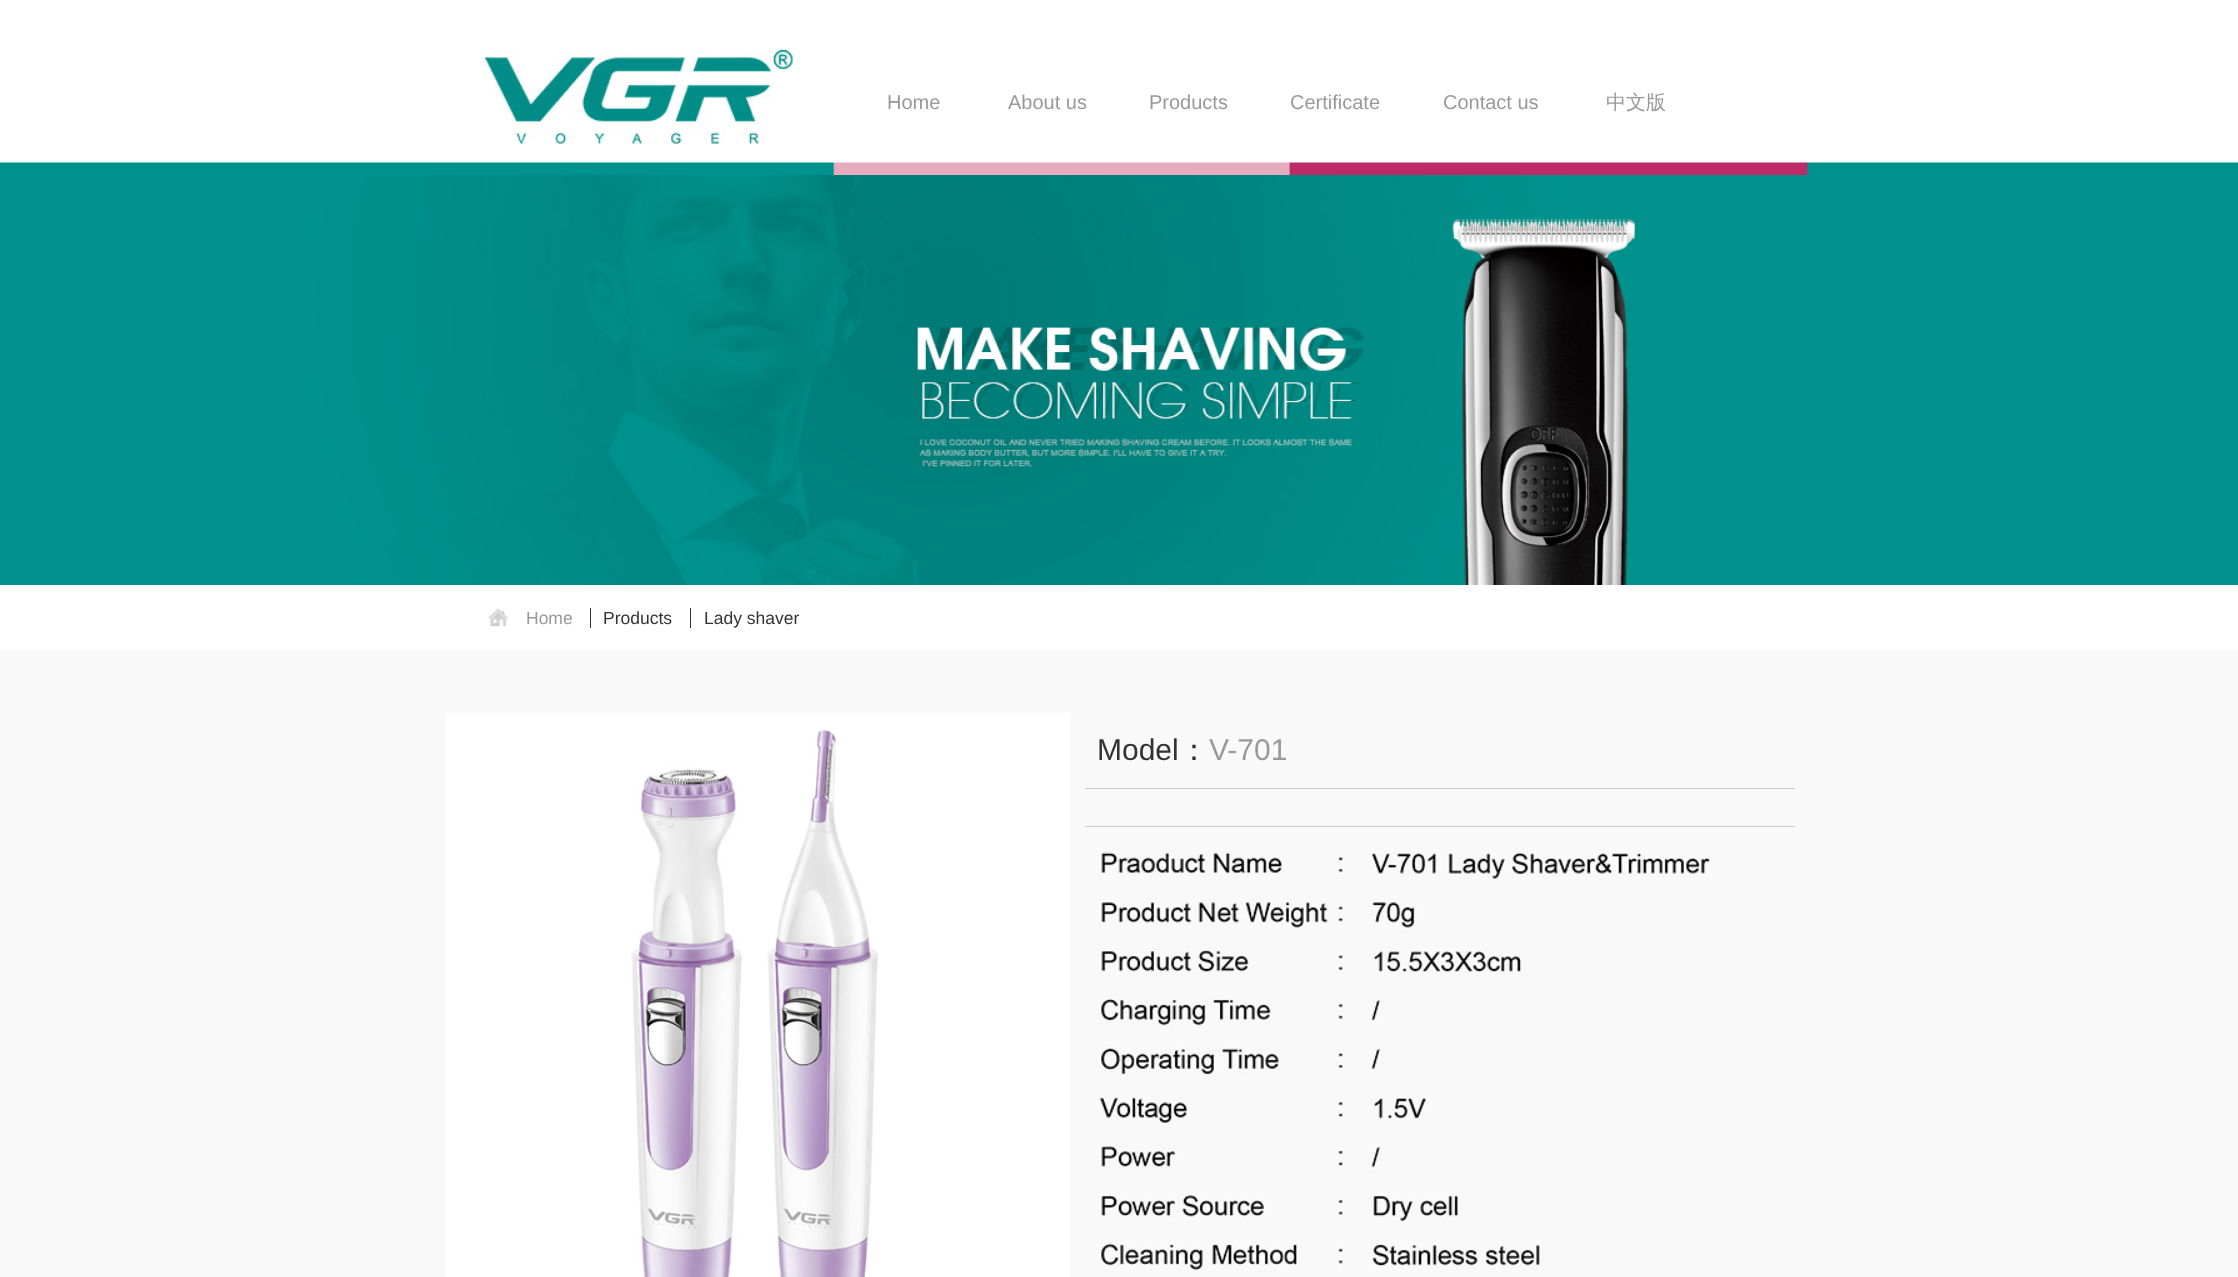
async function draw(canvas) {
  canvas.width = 2238;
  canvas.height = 1277;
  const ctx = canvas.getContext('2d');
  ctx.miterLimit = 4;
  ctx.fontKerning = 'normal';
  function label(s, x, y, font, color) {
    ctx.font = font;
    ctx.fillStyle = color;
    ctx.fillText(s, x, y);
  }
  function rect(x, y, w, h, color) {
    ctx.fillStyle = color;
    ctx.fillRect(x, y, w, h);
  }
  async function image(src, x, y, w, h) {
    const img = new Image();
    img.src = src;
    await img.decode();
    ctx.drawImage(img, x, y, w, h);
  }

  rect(0, 0, 2238, 1277, '#fff');
  await image('assets/img1.png', 485, 50, 308, 94);
  label('Home', 887, 109, '20px Liberation Sans', '#999');
  label('About us', 1008, 109, '20px Liberation Sans', '#999');
  label('Products', 1149, 109, '20px Liberation Sans', '#999');
  label('Certificate', 1290, 109, '20px Liberation Sans', '#999');
  label('Contact us', 1443, 109, '20px Liberation Sans', '#999');
  label('中文版', 1606, 109, '500 20px WenQuanYi Zen Hei', '#999');
  await image('assets/img2.png', 0, 162, 2238, 13);
  await image('assets/img3.png', 0, 175, 2238, 410);
  await image('assets/img4.png', 488, 608, 20, 19);
  label('Home', 526, 624, '17.5px Liberation Sans', '#999');
  label('Products', 603, 624, '17.5px Liberation Sans', '#333');
  rect(590, 608, 1, 20, '#333');
  label('Lady shaver', 704, 624, '17.5px Liberation Sans', '#333');
  rect(690, 608, 1, 20, '#333');
  rect(0, 650, 2238, 627, '#f9f9f9');
  rect(445, 713, 625, 564, '#fff');
  await image('assets/img5.png', 631, 729, 247, 548);
  rect(1085, 788, 710, 1, '#c9c9c9');
  label('Model', 1097, 760, '30px Liberation Sans', '#333');
  label('：', 1179, 760, '500 30px WenQuanYi Zen Hei', '#333');
  label('V-701', 1209, 760, '30px Liberation Sans', '#999');
  rect(1085, 826, 710, 1, '#c9c9c9');
  await image('assets/img6.png', 1099, 852, 611, 419);
}

draw(document.querySelector('canvas'));
